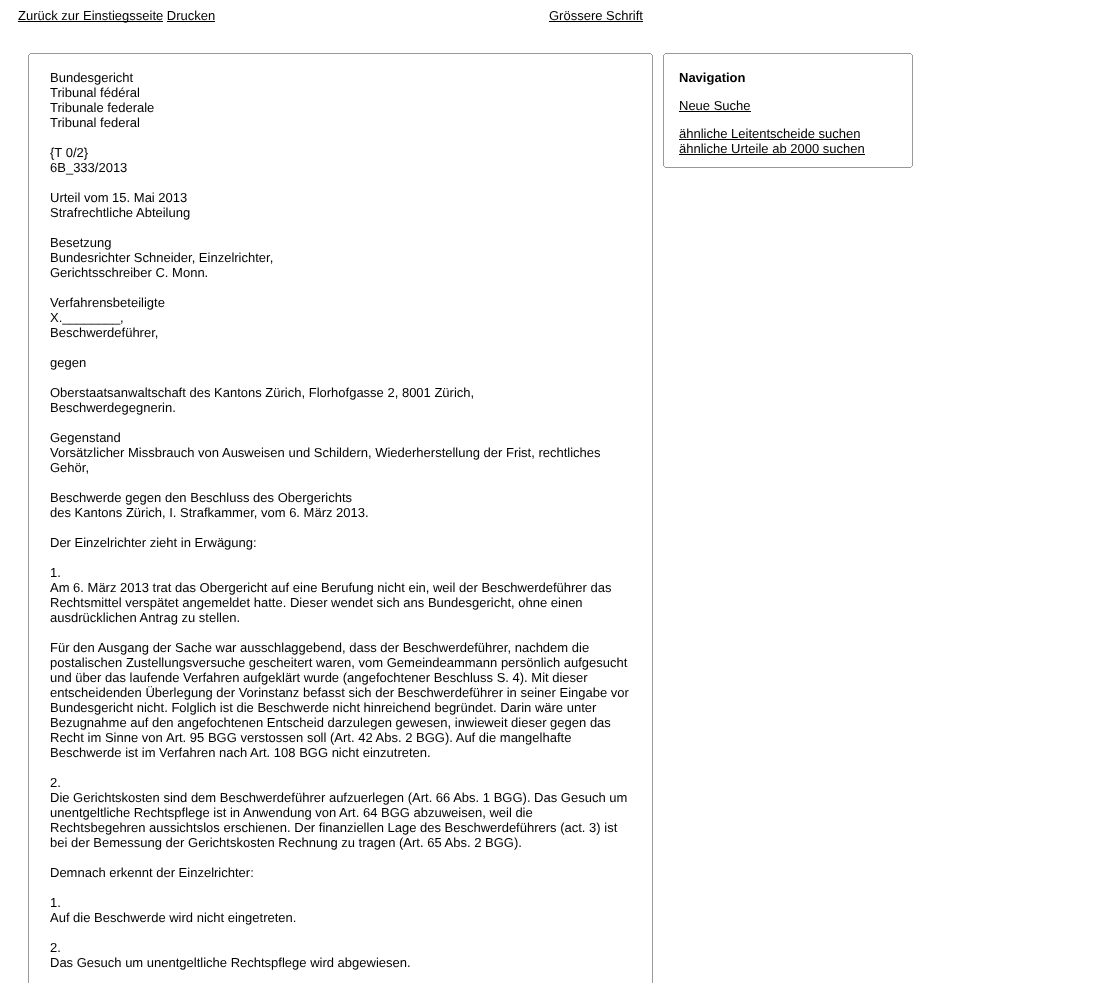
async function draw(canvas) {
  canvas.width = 1107;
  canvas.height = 983;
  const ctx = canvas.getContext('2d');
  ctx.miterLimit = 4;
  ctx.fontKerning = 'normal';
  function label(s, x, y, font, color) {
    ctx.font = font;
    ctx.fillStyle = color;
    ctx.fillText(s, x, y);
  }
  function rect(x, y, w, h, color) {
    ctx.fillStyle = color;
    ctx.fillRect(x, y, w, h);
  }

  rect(0, 0, 1107, 983, '#fff');
  rect(18, 21, 145, 1, '#000');
  label('Zurück zur Einstiegsseite Drucken', 18, 20, '13px Liberation Sans', '#000');
  rect(167, 21, 48, 1, '#000');
  label('Grössere Schrift', 549, 20, '13px Liberation Sans', '#000');
  rect(549, 21, 94, 1, '#000');
  rect(30, 53, 621, 1, '#999');
  rect(651, 54, 1, 1, '#999');
  rect(29, 54, 1, 1, '#999');
  rect(652, 55, 1, 928, '#999');
  rect(28, 55, 1, 928, '#999');
  label('Bundesgericht', 50, 82, '13px Liberation Sans', '#000');
  label('Tribunal fédéral', 50, 97, '13px Liberation Sans', '#000');
  label('Tribunale federale', 50, 112, '13px Liberation Sans', '#000');
  label('Tribunal federal', 50, 127, '13px Liberation Sans', '#000');
  label('{T 0/2}', 50, 157, '13px Liberation Sans', '#000');
  label('6B_333/2013', 50, 172, '13px Liberation Sans', '#000');
  label('Urteil vom 15. Mai 2013', 50, 202, '13px Liberation Sans', '#000');
  label('Strafrechtliche Abteilung', 50, 217, '13px Liberation Sans', '#000');
  label('Besetzung', 50, 247, '13px Liberation Sans', '#000');
  label('Bundesrichter Schneider, Einzelrichter,', 50, 262, '13px Liberation Sans', '#000');
  label('Gerichtsschreiber C. Monn.', 50, 277, '13px Liberation Sans', '#000');
  label('Verfahrensbeteiligte', 50, 307, '13px Liberation Sans', '#000');
  label('X.________,', 50, 322, '13px Liberation Sans', '#000');
  label('Beschwerdeführer,', 50, 337, '13px Liberation Sans', '#000');
  label('gegen', 50, 367, '13px Liberation Sans', '#000');
  label('Oberstaatsanwaltschaft des Kantons Zürich, Florhofgasse 2, 8001 Zürich,', 50, 397, '13px Liberation Sans', '#000');
  label('Beschwerdegegnerin.', 50, 412, '13px Liberation Sans', '#000');
  label('Gegenstand', 50, 442, '13px Liberation Sans', '#000');
  label('Vorsätzlicher Missbrauch von Ausweisen und Schildern, Wiederherstellung der Frist, rechtliches', 50, 457, '13px Liberation Sans', '#000');
  label('Gehör,', 50, 472, '13px Liberation Sans', '#000');
  label('Beschwerde gegen den Beschluss des Obergerichts', 50, 502, '13px Liberation Sans', '#000');
  label('des Kantons Zürich, I. Strafkammer, vom 6. März 2013.', 50, 517, '13px Liberation Sans', '#000');
  label('Der Einzelrichter zieht in Erwägung:', 50, 547, '13px Liberation Sans', '#000');
  label('1.', 50, 577, '13px Liberation Sans', '#000');
  label('Am 6. März 2013 trat das Obergericht auf eine Berufung nicht ein, weil der Beschwerdeführer das', 50, 592, '13px Liberation Sans', '#000');
  label('Rechtsmittel verspätet angemeldet hatte. Dieser wendet sich ans Bundesgericht, ohne einen', 50, 607, '13px Liberation Sans', '#000');
  label('ausdrücklichen Antrag zu stellen.', 50, 622, '13px Liberation Sans', '#000');
  label('Für den Ausgang der Sache war ausschlaggebend, dass der Beschwerdeführer, nachdem die', 50, 652, '13px Liberation Sans', '#000');
  label('postalischen Zustellungsversuche gescheitert waren, vom Gemeindeammann persönlich aufgesucht', 50, 667, '13px Liberation Sans', '#000');
  label('und über das laufende Verfahren aufgeklärt wurde (angefochtener Beschluss S. 4). Mit dieser', 50, 682, '13px Liberation Sans', '#000');
  label('entscheidenden Überlegung der Vorinstanz befasst sich der Beschwerdeführer in seiner Eingabe vor', 50, 697, '13px Liberation Sans', '#000');
  label('Bundesgericht nicht. Folglich ist die Beschwerde nicht hinreichend begründet. Darin wäre unter', 50, 712, '13px Liberation Sans', '#000');
  label('Bezugnahme auf den angefochtenen Entscheid darzulegen gewesen, inwieweit dieser gegen das', 50, 727, '13px Liberation Sans', '#000');
  label('Recht im Sinne von', 50, 742, '13px Liberation Sans', '#000');
  label('Art. 95 BGG verstossen soll (Art. 42 Abs. 2 BGG). Auf die mangelhafte', 166, 742, '13px Liberation Sans', '#000');
  label('Beschwerde ist im Verfahren nach', 50, 757, '13px Liberation Sans', '#000');
  label('Art. 108 BGG nicht einzutreten.', 250, 757, '13px Liberation Sans', '#000');
  label('2.', 50, 787, '13px Liberation Sans', '#000');
  label('Die Gerichtskosten sind dem Beschwerdeführer aufzuerlegen (Art. 66 Abs. 1 BGG). Das Gesuch um', 50, 802, '13px Liberation Sans', '#000');
  label('unentgeltliche Rechtspflege ist in Anwendung von Art. 64 BGG abzuweisen, weil die', 50, 817, '13px Liberation Sans', '#000');
  label('Rechtsbegehren aussichtslos erschienen. Der finanziellen Lage des Beschwerdeführers (act. 3) ist', 50, 832, '13px Liberation Sans', '#000');
  label('bei der Bemessung der Gerichtskosten Rechnung zu tragen (Art. 65 Abs. 2 BGG).', 50, 847, '13px Liberation Sans', '#000');
  label('Demnach erkennt der Einzelrichter:', 50, 877, '13px Liberation Sans', '#000');
  label('1.', 50, 907, '13px Liberation Sans', '#000');
  label('Auf die Beschwerde wird nicht eingetreten.', 50, 922, '13px Liberation Sans', '#000');
  label('2.', 50, 952, '13px Liberation Sans', '#000');
  label('Das Gesuch um unentgeltliche Rechtspflege wird abgewiesen.', 50, 967, '13px Liberation Sans', '#000');
  rect(665, 53, 246, 1, '#999');
  rect(911, 54, 1, 1, '#999');
  rect(664, 54, 1, 1, '#999');
  rect(912, 55, 1, 111, '#999');
  rect(663, 55, 1, 111, '#999');
  label('Navigation', 679, 82, 'bold 13px Liberation Sans', '#000');
  label('Neue Suche', 679, 110, '13px Liberation Sans', '#000');
  rect(679, 111, 72, 1, '#000');
  label('ähnliche Leitentscheide suchen', 679, 138, '13px Liberation Sans', '#000');
  rect(679, 139, 181, 1, '#000');
  label('ähnliche Urteile ab 2000 suchen', 679, 153, '13px Liberation Sans', '#000');
  rect(679, 154, 186, 1, '#000');
  rect(911, 166, 1, 1, '#999');
  rect(664, 166, 1, 1, '#999');
  rect(665, 167, 246, 1, '#999');
}

draw(document.querySelector('canvas'));
